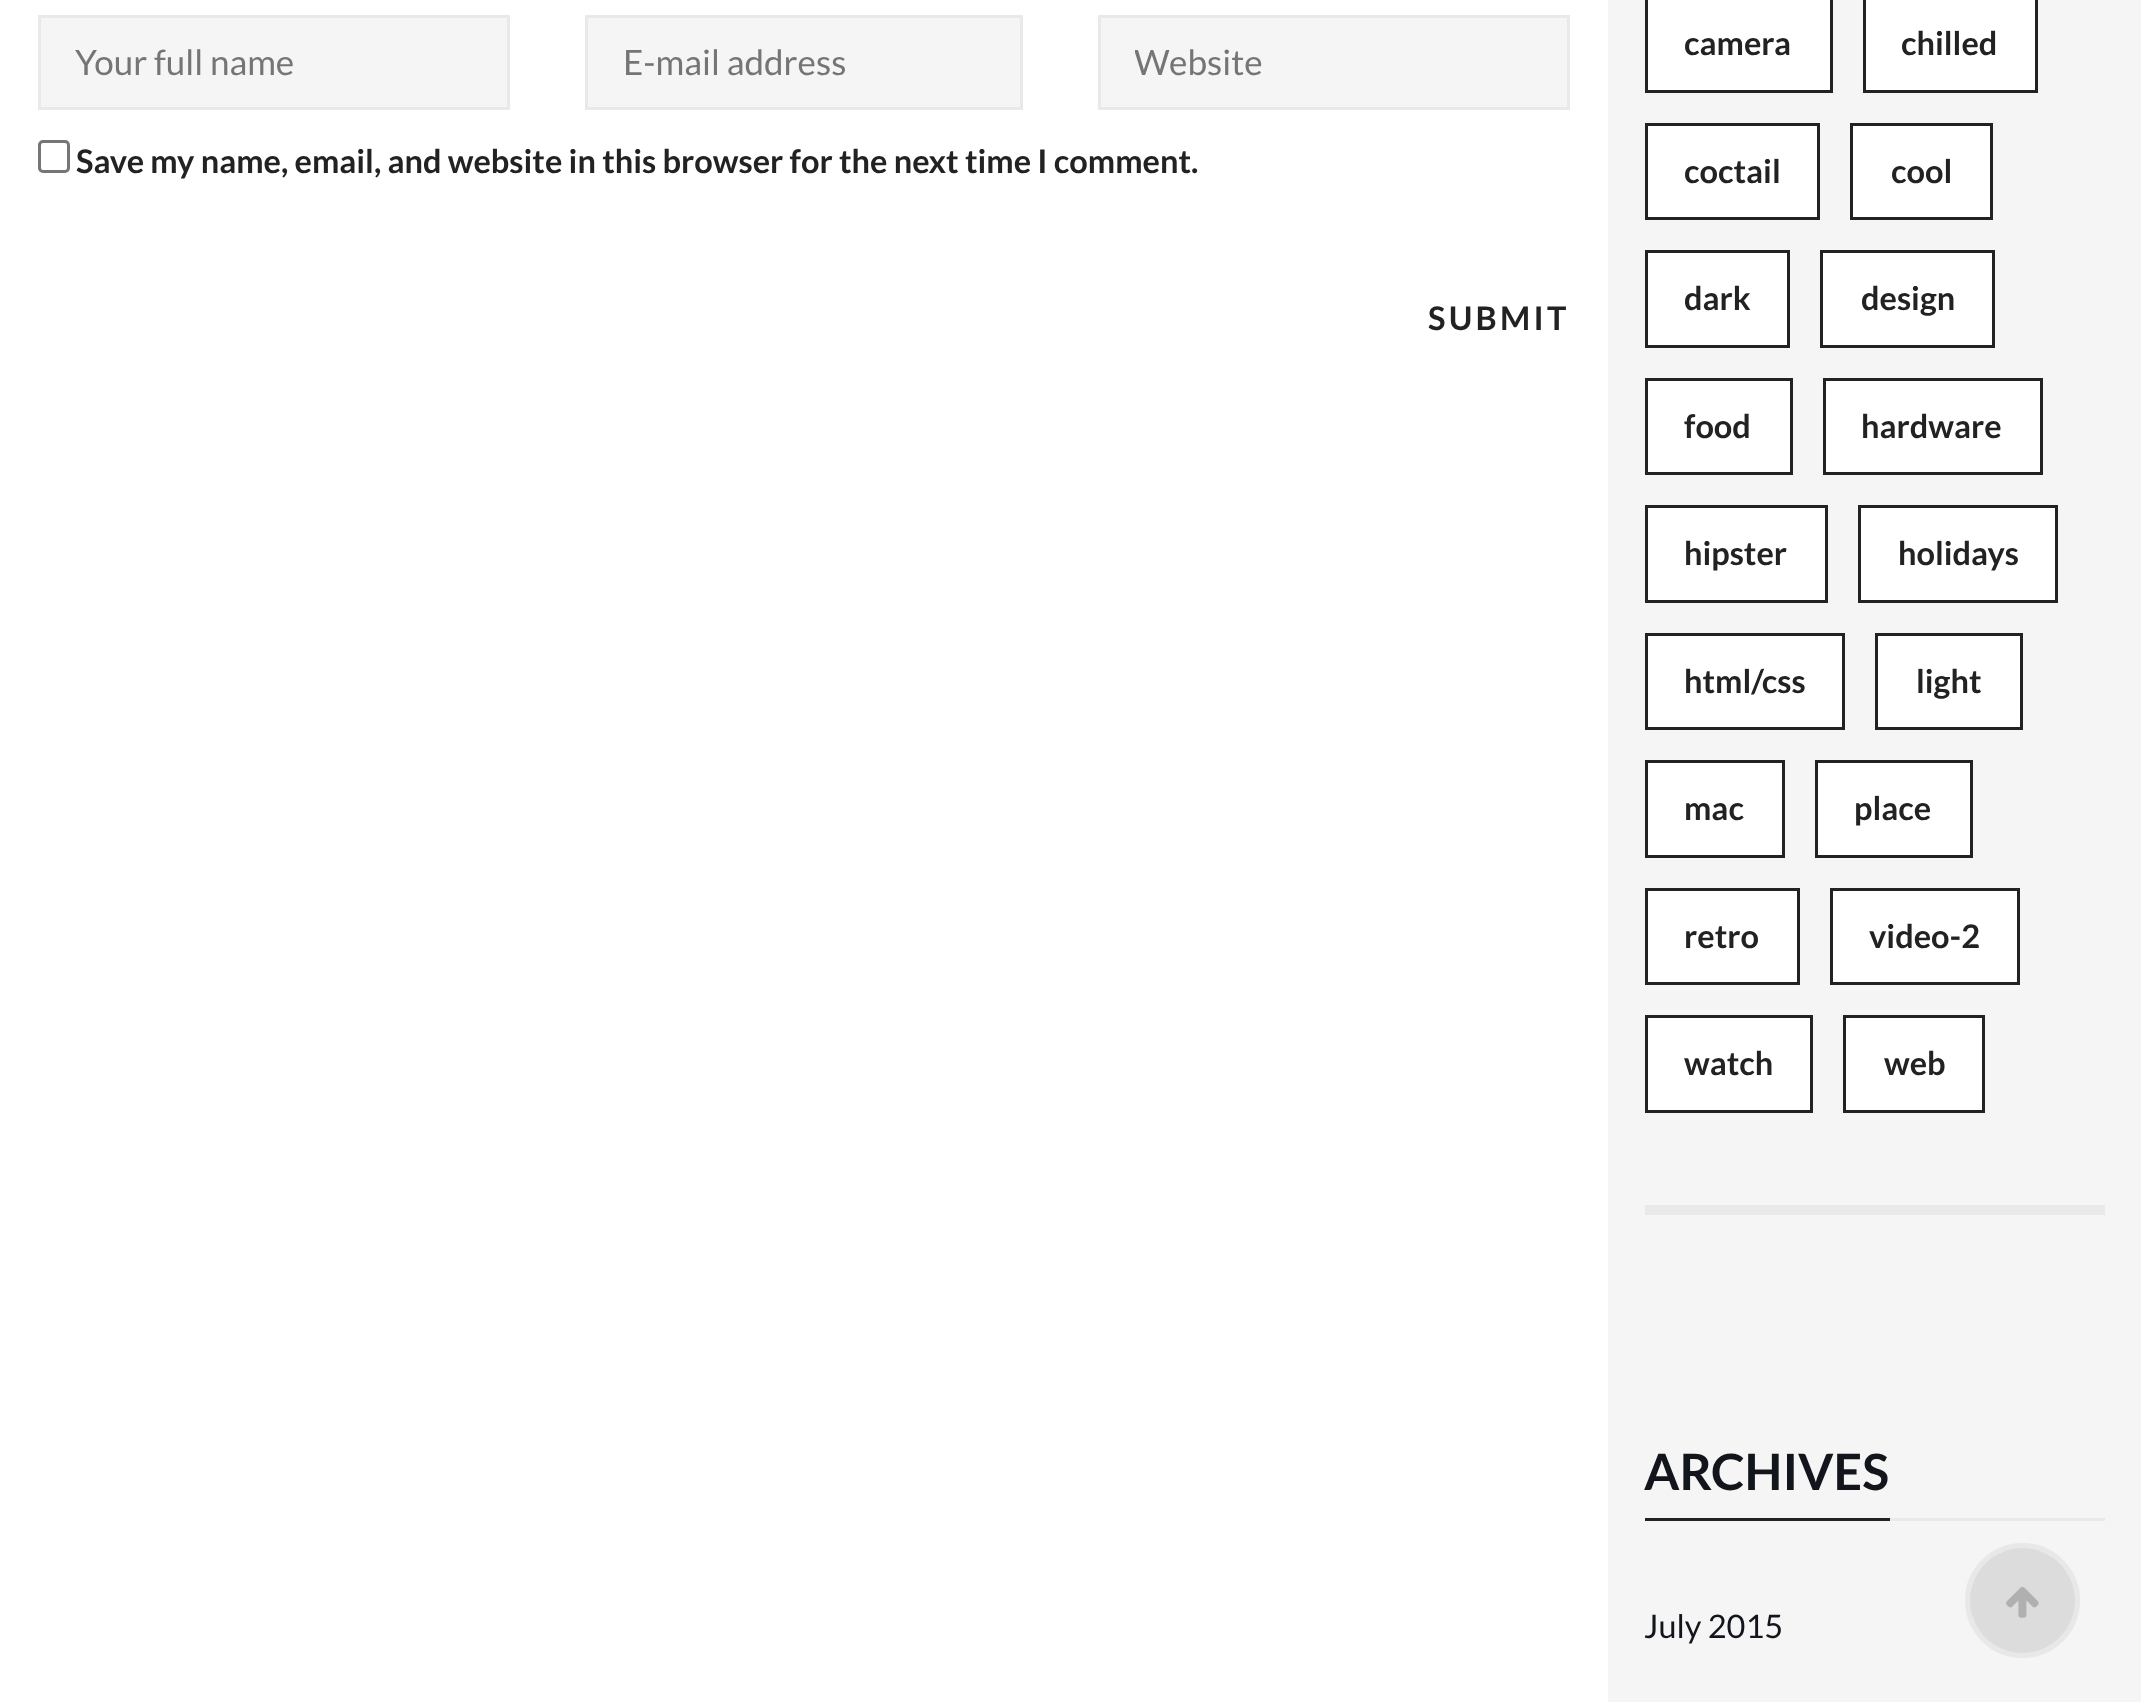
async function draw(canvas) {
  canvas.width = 2141;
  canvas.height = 1702;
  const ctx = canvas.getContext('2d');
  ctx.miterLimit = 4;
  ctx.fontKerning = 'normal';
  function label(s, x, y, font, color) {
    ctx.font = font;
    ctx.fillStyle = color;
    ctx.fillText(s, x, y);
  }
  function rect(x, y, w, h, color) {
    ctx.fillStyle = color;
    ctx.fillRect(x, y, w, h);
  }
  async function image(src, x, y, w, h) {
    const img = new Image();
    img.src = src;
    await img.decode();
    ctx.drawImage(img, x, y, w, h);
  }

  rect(0, 0, 2141, 1702, '#fff');
  ctx.fillStyle = '#f5f5f5';
  ctx.beginPath();
  ctx.rect(39.5, 16.5, 469, 92);
  ctx.fill();
  ctx.strokeStyle = '#e9e9e9';
  ctx.lineWidth = 3;
  ctx.stroke();
  label('Your full name', 75, 75, '35px Lato', '#757575');
  ctx.fillStyle = '#f5f5f5';
  ctx.beginPath();
  ctx.rect(586.5, 16.5, 435, 92);
  ctx.fill();
  ctx.stroke();
  label('E-mail address', 623, 75, '35px Lato', '#757575');
  ctx.fillStyle = '#f5f5f5';
  ctx.beginPath();
  ctx.rect(1099.5, 16.5, 469, 92);
  ctx.fill();
  ctx.stroke();
  ctx.save();
  ctx.beginPath();
  ctx.rect(1135, 40, 398, 43);
  ctx.clip();
  label('Website', 1134, 75, '35px Lato', '#757575');
  ctx.restore();
  ctx.beginPath();
  ctx.roundRect(39.5, 141.5, 29, 30, 3.5);
  ctx.strokeStyle = '#767676';
  ctx.stroke();
  label('Save my name, email, and website in this browser for the next time I comment.', 76, 173, 'bold 32.5px Lato', '#222');
  ctx.letterSpacing = '3.25px';
  label('SUBMIT', 1428, 330, 'bold 32.5px Lato', '#222');
  rect(1608, 0, 533, 1702, '#f5f5f5');
  rect(1645, 1205, 460, 10, '#e9e9e9');
  ctx.fillStyle = '#fff';
  ctx.beginPath();
  ctx.rect(1646.5, -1.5, 185, 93);
  ctx.fill();
  ctx.strokeStyle = '#222';
  ctx.stroke();
  ctx.letterSpacing = '0px';
  label('camera', 1684, 55, 'bold 32.5px Lato', '#222');
  ctx.fillStyle = '#fff';
  ctx.beginPath();
  ctx.rect(1864.5, -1.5, 172, 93);
  ctx.fill();
  ctx.stroke();
  label('chilled', 1901, 55, 'bold 32.5px Lato', '#222');
  ctx.fillStyle = '#fff';
  ctx.beginPath();
  ctx.rect(1646.5, 124.5, 172, 94);
  ctx.fill();
  ctx.stroke();
  label('coctail', 1684, 183, 'bold 32.5px Lato', '#222');
  ctx.fillStyle = '#fff';
  ctx.beginPath();
  ctx.rect(1851.5, 124.5, 140, 94);
  ctx.fill();
  ctx.stroke();
  label('cool', 1891, 183, 'bold 32.5px Lato', '#222');
  ctx.fillStyle = '#fff';
  ctx.beginPath();
  ctx.rect(1646.5, 251.5, 142, 95);
  ctx.fill();
  ctx.stroke();
  label('dark', 1684, 310, 'bold 32.5px Lato', '#222');
  ctx.fillStyle = '#fff';
  ctx.beginPath();
  ctx.rect(1821.5, 251.5, 172, 95);
  ctx.fill();
  ctx.stroke();
  label('design', 1861, 310, 'bold 32.5px Lato', '#222');
  ctx.fillStyle = '#fff';
  ctx.beginPath();
  ctx.rect(1646.5, 379.5, 145, 94);
  ctx.fill();
  ctx.stroke();
  label('food', 1684, 438, 'bold 32.5px Lato', '#222');
  ctx.fillStyle = '#fff';
  ctx.beginPath();
  ctx.rect(1824.5, 379.5, 217, 94);
  ctx.fill();
  ctx.stroke();
  label('hardware', 1861, 438, 'bold 32.5px Lato', '#222');
  ctx.fillStyle = '#fff';
  ctx.beginPath();
  ctx.rect(1646.5, 506.5, 180, 95);
  ctx.fill();
  ctx.stroke();
  label('hipster', 1684, 565, 'bold 32.5px Lato', '#222');
  ctx.fillStyle = '#fff';
  ctx.beginPath();
  ctx.rect(1859.5, 506.5, 197, 95);
  ctx.fill();
  ctx.stroke();
  label('holidays', 1898, 565, 'bold 32.5px Lato', '#222');
  ctx.fillStyle = '#fff';
  ctx.beginPath();
  ctx.rect(1646.5, 634.5, 197, 94);
  ctx.fill();
  ctx.stroke();
  label('html/css', 1684, 693, 'bold 32.5px Lato', '#222');
  ctx.fillStyle = '#fff';
  ctx.beginPath();
  ctx.rect(1876.5, 634.5, 145, 94);
  ctx.fill();
  ctx.stroke();
  label('light', 1916, 693, 'bold 32.5px Lato', '#222');
  ctx.fillStyle = '#fff';
  ctx.beginPath();
  ctx.rect(1646.5, 761.5, 137, 95);
  ctx.fill();
  ctx.stroke();
  label('mac', 1684, 820, 'bold 32.5px Lato', '#222');
  ctx.fillStyle = '#fff';
  ctx.beginPath();
  ctx.rect(1816.5, 761.5, 155, 95);
  ctx.fill();
  ctx.stroke();
  label('place', 1854, 820, 'bold 32.5px Lato', '#222');
  ctx.fillStyle = '#fff';
  ctx.beginPath();
  ctx.rect(1646.5, 889.5, 152, 94);
  ctx.fill();
  ctx.stroke();
  label('retro', 1684, 948, 'bold 32.5px Lato', '#222');
  ctx.fillStyle = '#fff';
  ctx.beginPath();
  ctx.rect(1831.5, 889.5, 187, 94);
  ctx.fill();
  ctx.stroke();
  label('video-2', 1869, 948, 'bold 32.5px Lato', '#222');
  ctx.fillStyle = '#fff';
  ctx.beginPath();
  ctx.rect(1646.5, 1016.5, 165, 95);
  ctx.fill();
  ctx.stroke();
  label('watch', 1684, 1075, 'bold 32.5px Lato', '#222');
  ctx.fillStyle = '#fff';
  ctx.beginPath();
  ctx.rect(1844.5, 1016.5, 139, 95);
  ctx.fill();
  ctx.stroke();
  label('web', 1884, 1075, 'bold 32.5px Lato', '#222');
  rect(1890, 1518, 215, 3, '#e9e9e9');
  rect(1645, 1518, 245, 3, '#222');
  label('ARCHIVES', 1644, 1490, 'bold 50px Lato', '#13151c');
  label('July 2015', 1644, 1638, '32.5px Lato', '#13151c');
  ctx.beginPath();
  ctx.arc(2022.5, 1600.5, 55, 0, 2 * Math.PI);
  ctx.strokeStyle = '#e8e8e8';
  ctx.lineWidth = 5;
  ctx.stroke();
  ctx.fillStyle = '#0000001a';
  ctx.beginPath();
  ctx.arc(2022.5, 1600.5, 52.5, 0, 2 * Math.PI);
  ctx.fill();
  await image('assets/img1.png', 2006, 1587, 33, 31);
}

draw(document.querySelector('canvas'));
